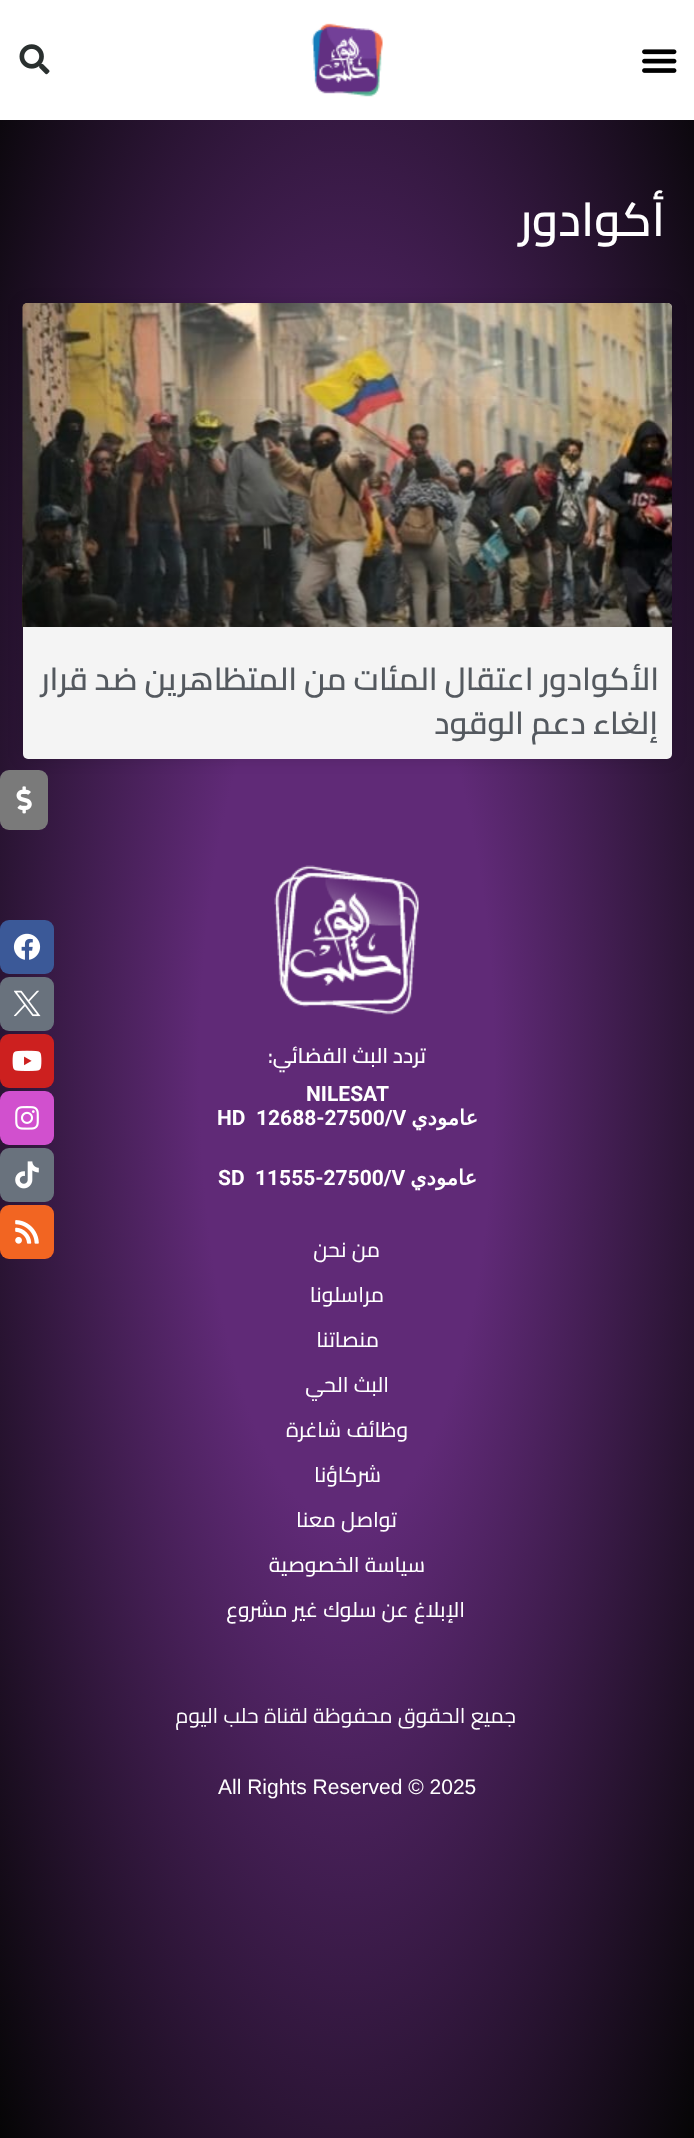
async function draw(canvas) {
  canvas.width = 694;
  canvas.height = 2138;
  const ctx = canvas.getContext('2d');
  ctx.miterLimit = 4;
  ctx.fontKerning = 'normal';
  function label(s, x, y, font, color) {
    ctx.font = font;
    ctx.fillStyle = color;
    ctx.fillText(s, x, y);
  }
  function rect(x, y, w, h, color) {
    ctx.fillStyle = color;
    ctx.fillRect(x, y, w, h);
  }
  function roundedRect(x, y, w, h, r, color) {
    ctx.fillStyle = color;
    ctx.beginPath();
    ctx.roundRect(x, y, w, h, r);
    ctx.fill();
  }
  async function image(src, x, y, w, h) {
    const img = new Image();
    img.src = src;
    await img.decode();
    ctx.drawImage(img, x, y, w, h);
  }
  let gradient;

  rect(0, 0, 694, 2138, '#fff');
  gradient = ctx.createRadialGradient(347, 347.24, 0, 347, 347.24, 491);
  gradient.addColorStop(0.3, '#602a77');
  gradient.addColorStop(1, '#050505');
  ctx.fillStyle = gradient;
  ctx.beginPath();
  ctx.rect(0, 120, 694, 2018);
  ctx.save();
  ctx.clip();
  ctx.scale(1, 1513 / 491);
  ctx.fillRect(0, 0, 694, 694);
  ctx.restore();
  await image('assets/img1.png', 642, 49, 35, 24);
  await image('assets/img2.png', 311, 23, 72, 74);
  await image('assets/img3.png', 19, 44, 31, 31);
  ctx.letterSpacing = '-1px';
  ctx.direction = 'rtl';
  label('أكوادور', 665, 236, '600 47px Cairo', '#fff');
  ctx.fillStyle = '#00000026';
  ctx.filter = 'blur(7.5px)';
  ctx.beginPath();
  ctx.roundRect(23, 303, 649, 456, 5);
  ctx.fill();
  ctx.filter = 'none';
  roundedRect(23, 303, 649, 456, 5, '#f4f4f4');
  await image('assets/img4.png', 22, 303, 650, 324);
  gradient = ctx.createLinearGradient(347, 627, 347, 303);
  gradient.addColorStop(0, '#00000059');
  gradient.addColorStop(0.75, '#00000000');
  ctx.fillStyle = gradient;
  ctx.fillRect(23, 399, 649, 228);
  ctx.letterSpacing = '0px';
  label('الأكوادور اعتقال المئات من المتظاهرين ضد قرار', 659, 690, '600 31.5px Cairo', '#54595f');
  label('إلغاء دعم الوقود', 658, 734, '600 31.5px Cairo', '#54595f');
  await image('assets/img5.png', 274, 865, 145, 150);
  label('تردد البث الفضائي:', 426, 1063, '600 21px Cairo', '#fff');
  ctx.direction = 'ltr';
  label('NILESAT', 306, 1101, 'bold 21px Roboto', '#fff');
  ctx.direction = 'rtl';
  label('عامودي', 478, 1125, 'bold 21px DejaVu Sans', '#fff');
  ctx.direction = 'ltr';
  label('12688-27500/V', 256, 1125, 'bold 21px Roboto', '#fff');
  label('HD', 217, 1125, 'bold 21px Roboto', '#fff');
  ctx.direction = 'rtl';
  label('عامودي', 477, 1185, 'bold 21px DejaVu Sans', '#fff');
  ctx.direction = 'ltr';
  label('11555-27500/V', 255, 1185, 'bold 21px Roboto', '#fff');
  label('SD', 218, 1185, 'bold 21px Roboto', '#fff');
  ctx.direction = 'rtl';
  label('من نحن', 380, 1257, '500 21px Cairo', '#fff');
  label('مراسلونا', 384, 1302, '500 21px Cairo', '#fff');
  label('منصاتنا', 379, 1347, '500 21px Cairo', '#fff');
  label('البث الحي', 389, 1392, '500 21px Cairo', '#fff');
  label('وظائف شاغرة', 408, 1437, '500 21px Cairo', '#fff');
  label('شركاؤنا', 381, 1482, '500 21px Cairo', '#fff');
  label('تواصل معنا', 397, 1527, '500 21px Cairo', '#fff');
  label('سياسة الخصوصية', 425, 1572, '500 21px Cairo', '#fff');
  label('الإبلاغ عن سلوك غير مشروع', 465, 1617, '500 21px Cairo', '#fff');
  label('جميع الحقوق محفوظة لقناة حلب اليوم', 516, 1723, '21px Cairo', '#fff');
  ctx.direction = 'ltr';
  label('All Rights Reserved © 2025', 218, 1794, '21px Liberation Sans', '#fff');
  roundedRect(0, 770, 48, 60, 9, '#7a7a7a');
  await image('assets/img6.png', 16, 786, 16, 28);
  roundedRect(0, 920, 54, 54, 9, '#3b5998');
  await image('assets/img7.png', 13, 933, 28, 27);
  roundedRect(0, 977, 54, 54, 9, '#69727d');
  await image('assets/img8.png', 14, 990, 27, 27);
  roundedRect(0, 1034, 54, 54, 9, '#cd201f');
  await image('assets/img9.png', 12, 1050, 30, 21);
  roundedRect(0, 1091, 54, 54, 9, '#d150ce');
  await image('assets/img10.png', 15, 1106, 24, 24);
  roundedRect(0, 1148, 54, 54, 9, '#69727d');
  await image('assets/img11.png', 15, 1161, 24, 28);
  roundedRect(0, 1205, 54, 54, 9, '#f26522');
  await image('assets/img12.png', 15, 1220, 24, 24);
}

draw(document.querySelector('canvas'));
